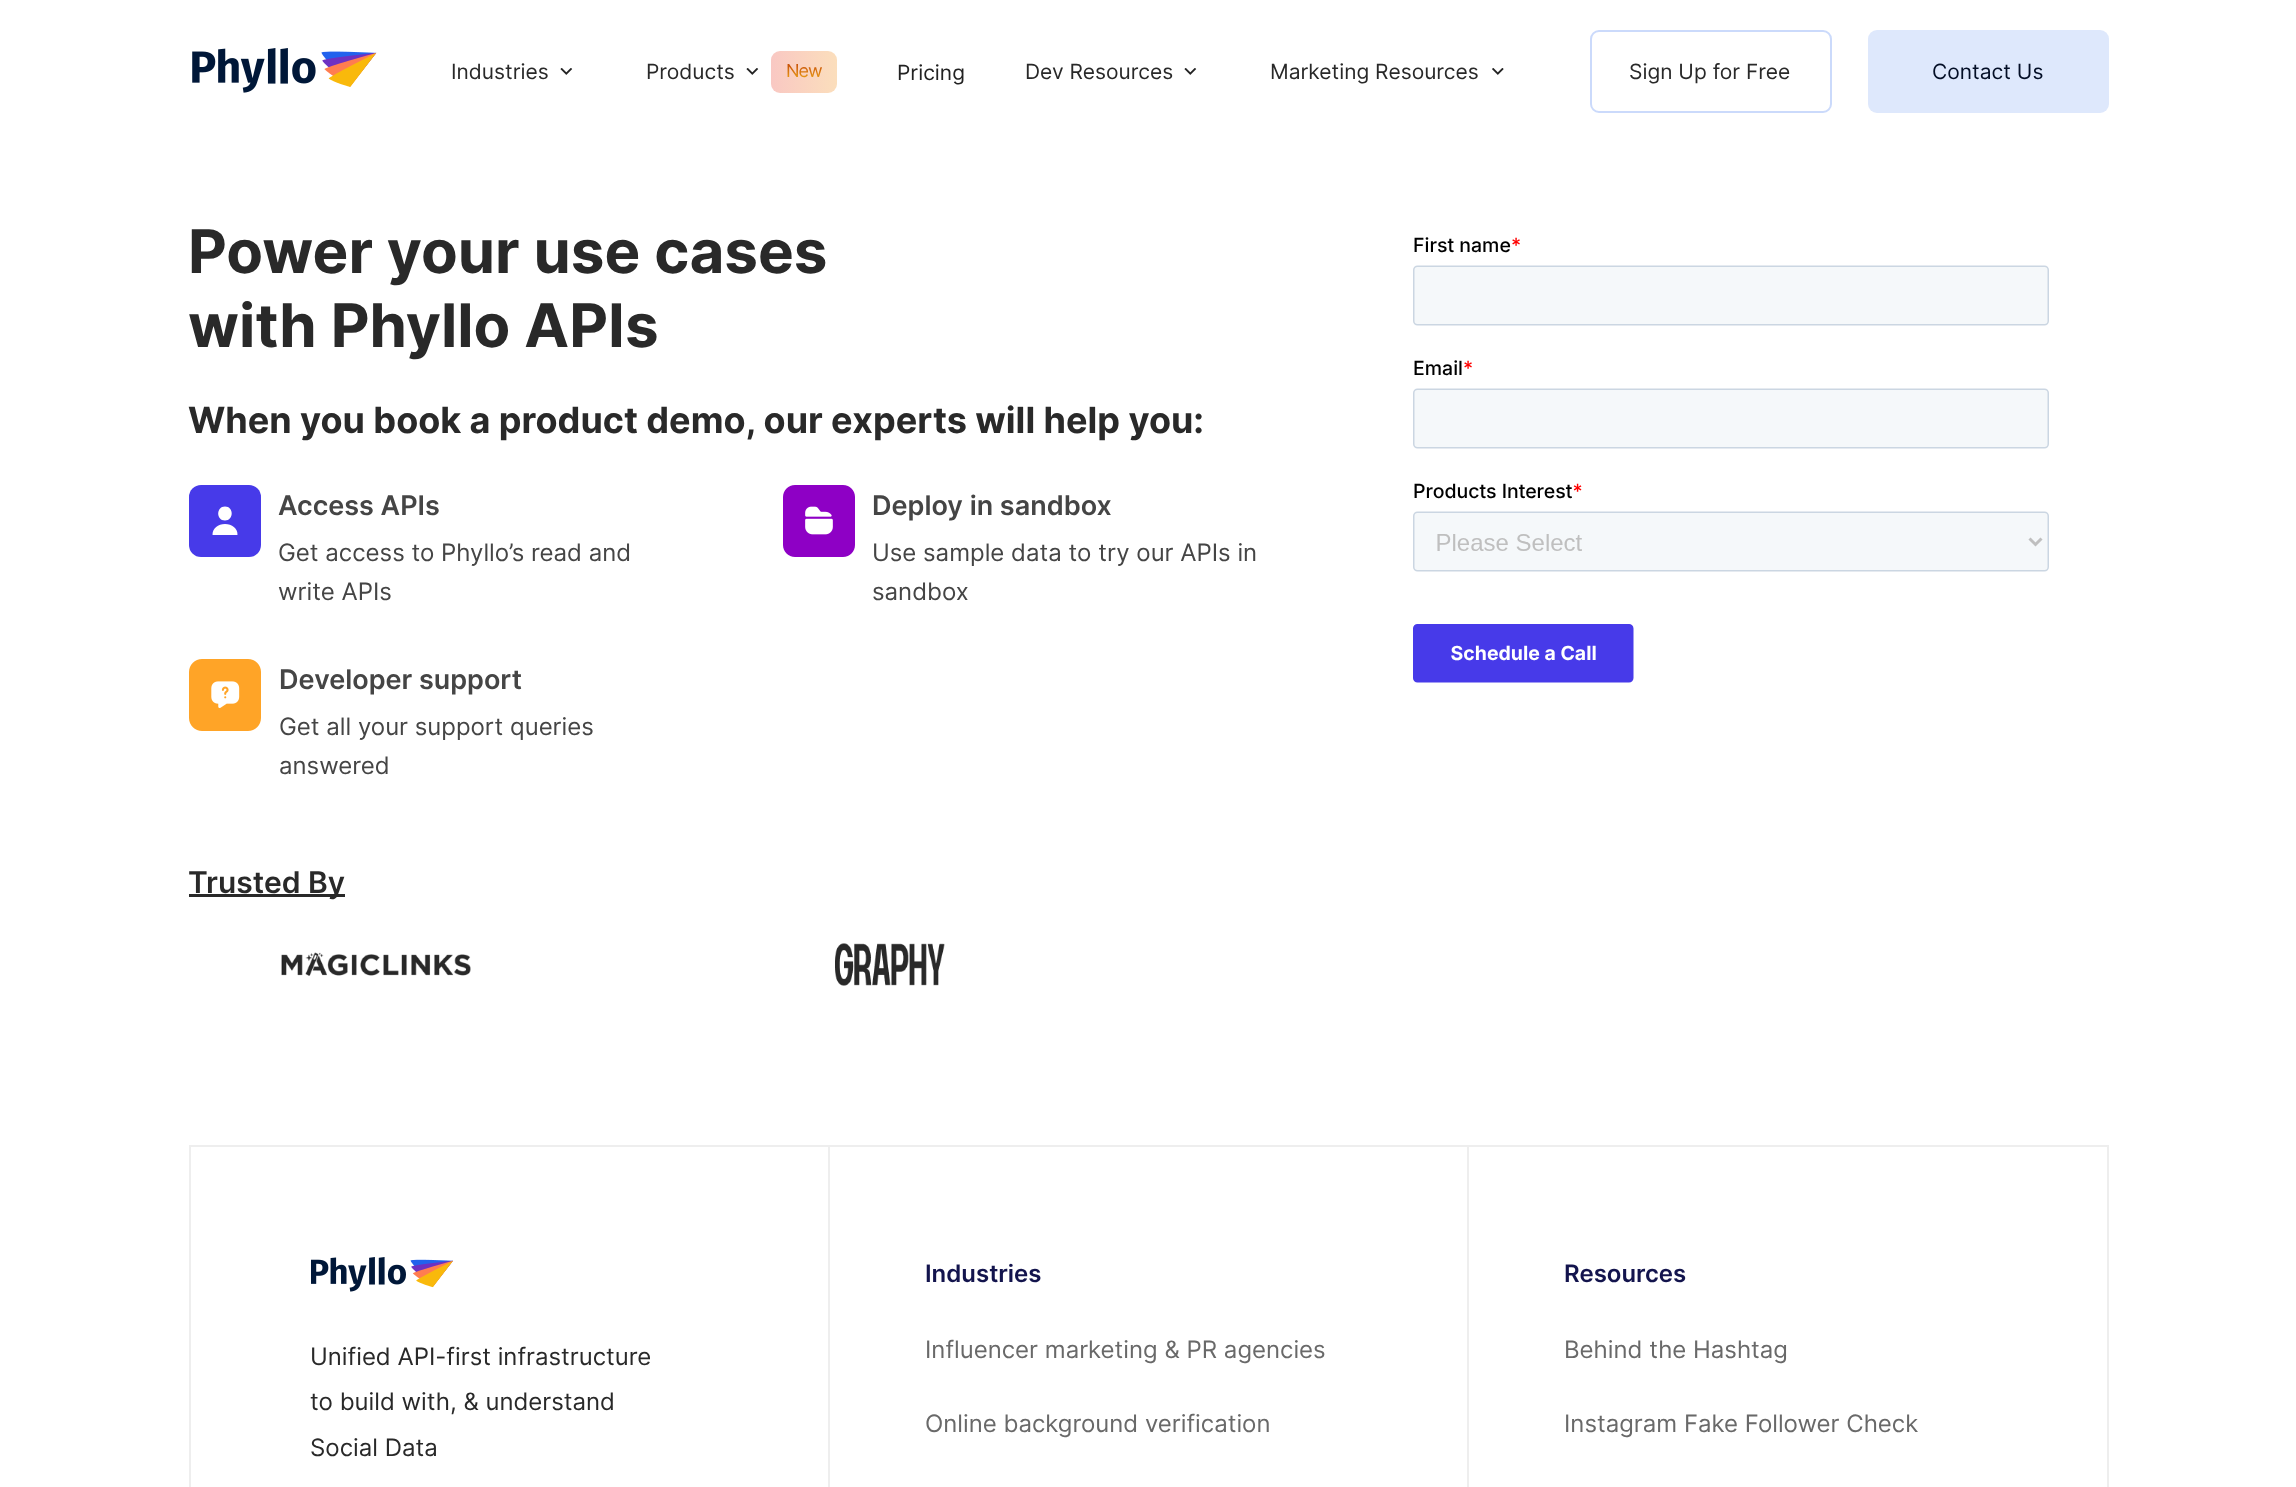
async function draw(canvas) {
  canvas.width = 2296;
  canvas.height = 1487;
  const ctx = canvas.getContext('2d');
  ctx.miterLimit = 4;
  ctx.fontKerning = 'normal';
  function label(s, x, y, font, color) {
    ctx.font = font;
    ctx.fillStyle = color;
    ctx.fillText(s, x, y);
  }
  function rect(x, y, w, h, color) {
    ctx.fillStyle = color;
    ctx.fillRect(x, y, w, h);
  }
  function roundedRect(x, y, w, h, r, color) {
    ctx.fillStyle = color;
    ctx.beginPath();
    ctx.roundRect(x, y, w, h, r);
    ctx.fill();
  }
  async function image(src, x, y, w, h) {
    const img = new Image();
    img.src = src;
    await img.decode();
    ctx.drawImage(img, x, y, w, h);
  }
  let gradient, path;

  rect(0, 0, 2296, 1487, '#fff');
  await image('assets/img1.png', 192, 48, 185, 45);
  label('Industries', 451, 79, '21px Inter', '#292929');
  await image('assets/img2.png', 560, 68, 13, 7);
  label('Products', 646, 79, '21px Inter', '#292929');
  await image('assets/img2.png', 746, 68, 13, 7);
  gradient = ctx.createLinearGradient(1233, 198, 771, 198);
  gradient.addColorStop(0, '#f9c8c3');
  gradient.addColorStop(0.2, '#fce7b9');
  gradient.addColorStop(0.4, '#fef2d2');
  gradient.addColorStop(0.6, '#fede75');
  gradient.addColorStop(0.8, '#fce7b9');
  gradient.addColorStop(1, '#f9c8c3');
  ctx.fillStyle = gradient;
  ctx.beginPath();
  ctx.roundRect(771, 51, 66, 42, 9);
  ctx.fill();
  ctx.letterSpacing = '-1px';
  ctx.font = '18px Inter';
  gradient = ctx.createLinearGradient(804, 58, 804, 85);
  gradient.addColorStop(0, '#b82e00');
  gradient.addColorStop(1, '#f9bf1f');
  ctx.fillStyle = gradient;
  ctx.fillText('New', 786, 77);
  ctx.letterSpacing = '0px';
  label('Pricing', 897, 80, '21px Inter', '#222');
  label('Dev Resources', 1025, 79, '21px Inter', '#292929');
  await image('assets/img2.png', 1184, 68, 13, 7);
  label('Marketing Resources', 1270, 79, '21px Inter', '#292929');
  await image('assets/img3.png', 1492, 68, 12, 7);
  ctx.beginPath();
  ctx.roundRect(1591, 31, 240, 81, 8);
  ctx.strokeStyle = '#cbdafb';
  ctx.lineWidth = 2;
  ctx.stroke();
  label('Sign Up for Free', 1629, 79, '21px Inter', '#292929');
  roundedRect(1868, 30, 241, 83, 9, '#dee8fc');
  label('Contact Us', 1932, 79, '21px Inter', '#030e26');
  label('Power your use cases', 188, 273, 'bold 60px Inter', '#292929');
  label('with Phyllo APIs', 188, 347, 'bold 60px Inter', '#292929');
  label('When you book a product demo, our experts will help you:', 188, 433, 'bold 36px Inter', '#292929');
  roundedRect(189, 485, 72, 72, 12, '#473ae9');
  ctx.fillStyle = '#fff';
  path = new Path2D('M225 520.5C234 520.5 234 506.5 225 506.5C216 506.5 216 520.5 225 520.5ZM225 524C218 524 212.5 528.5 212.5 534.5C212.5 534.5 212.5 535 213 535H237C237.5 535 237.5 534.5 237.5 534.5C237.5 528.5 232 524 225 524Z');
  ctx.fill(path);
  label('Access APIs', 278, 515, '600 27px Inter', '#454545');
  label('Get access to Phyllo’s read and', 278, 561, '24px Inter', '#454545');
  label('write APIs', 278, 600, '24px Inter', '#454545');
  await image('assets/img4.png', 783, 485, 72, 72);
  label('Deploy in sandbox', 872, 515, '600 27px Inter', '#454545');
  label('Use sample data to try our APIs in', 872, 561, '24px Inter', '#454545');
  label('sandbox', 872, 600, '24px Inter', '#454545');
  await image('assets/img5.png', 189, 659, 72, 72);
  label('Developer support', 279, 689, '600 27px Inter', '#454545');
  label('Get all your support queries', 279, 735, '24px Inter', '#454545');
  label('answered', 279, 774, '24px Inter', '#454545');
  rect(189, 894, 156, 3, '#292929');
  label('Trusted By', 188, 893, '600 30px Inter', '#292929');
  await image('assets/img6.png', 281, 952, 190, 24);
  await image('assets/img7.png', 835, 943, 110, 43);
  await image('assets/img8.png', 1413, 237, 636, 446);
  ctx.strokeStyle = '#eee';
  ctx.strokeRect(190, 1146, 1918, 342);
  rect(828, 1146, 2, 341, '#eee');
  await image('assets/img9.png', 311, 1257, 142, 35);
  label('Unified API-first infrastructure', 310, 1365, '24px Inter', '#292929');
  label('to build with, & understand', 310, 1410, '24px Inter', '#292929');
  label('Social Data', 310, 1456, '24px Inter', '#292929');
  rect(1467, 1146, 2, 341, '#eee');
  label('Industries', 925, 1282, '600 24px Inter', '#13144d');
  label('Influencer marketing & PR agencies', 925, 1358, '24px Inter', '#696969');
  label('Online background verification', 925, 1432, '24px Inter', '#696969');
  label('Resources', 1564, 1282, '600 24px Inter', '#13144d');
  label('Behind the Hashtag', 1564, 1358, '24px Inter', '#696969');
  label('Instagram Fake Follower Check', 1564, 1432, '24px Inter', '#696969');
}

draw(document.querySelector('canvas'));
